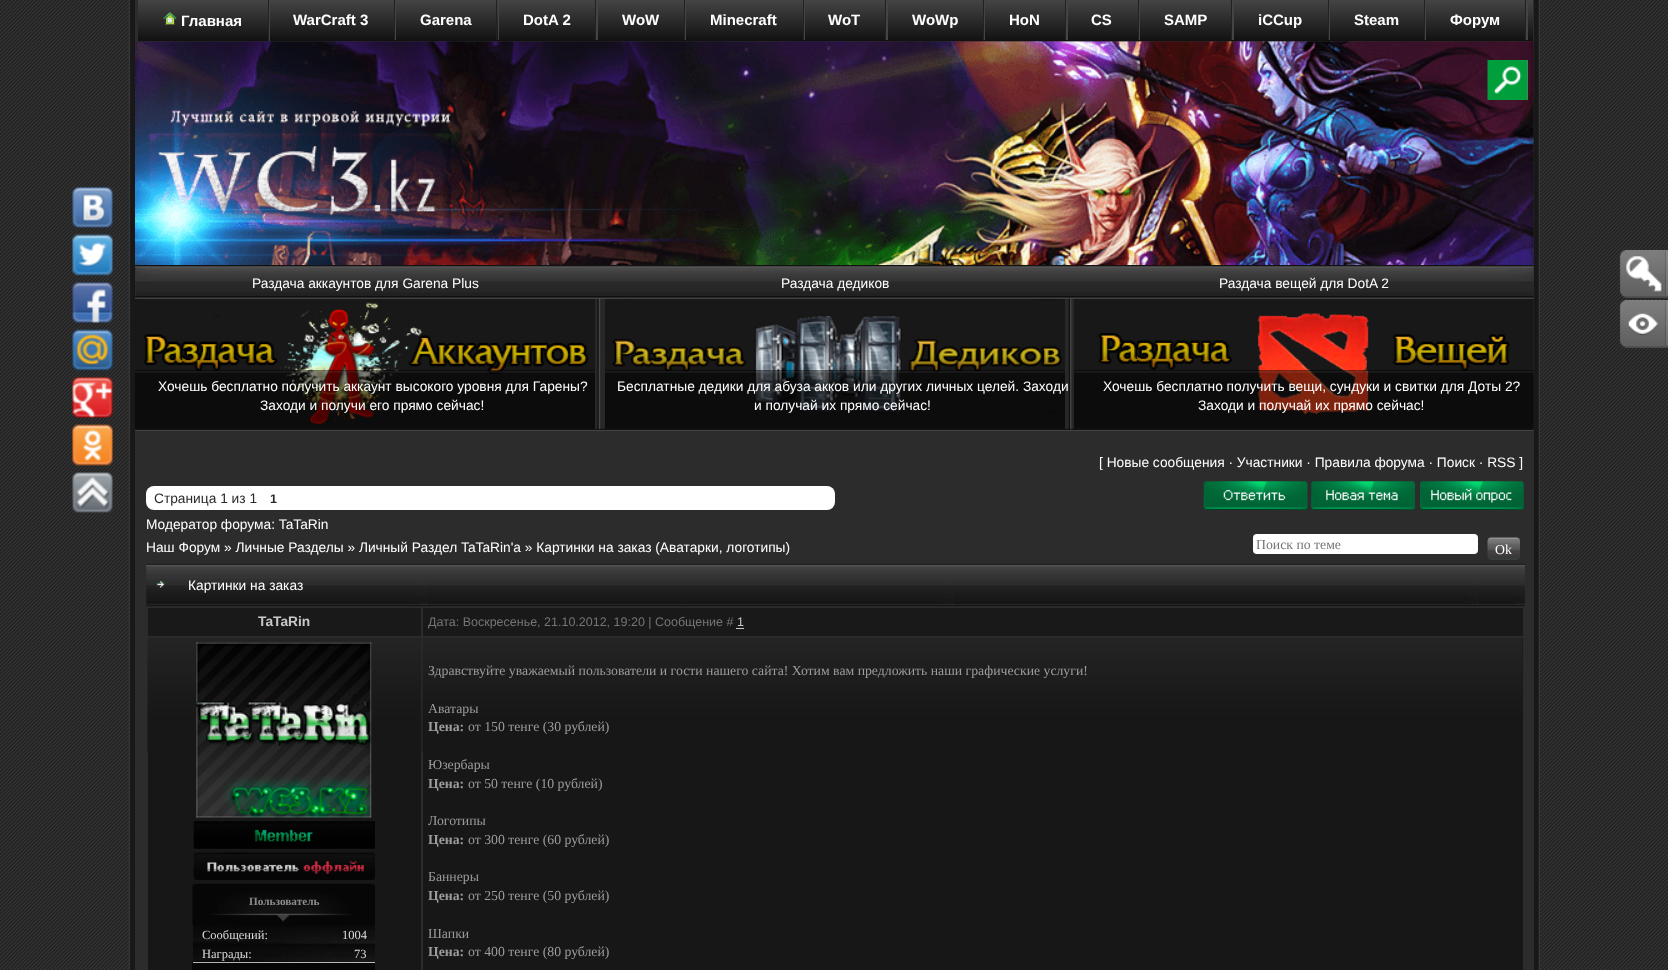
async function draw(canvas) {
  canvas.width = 1668;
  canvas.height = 970;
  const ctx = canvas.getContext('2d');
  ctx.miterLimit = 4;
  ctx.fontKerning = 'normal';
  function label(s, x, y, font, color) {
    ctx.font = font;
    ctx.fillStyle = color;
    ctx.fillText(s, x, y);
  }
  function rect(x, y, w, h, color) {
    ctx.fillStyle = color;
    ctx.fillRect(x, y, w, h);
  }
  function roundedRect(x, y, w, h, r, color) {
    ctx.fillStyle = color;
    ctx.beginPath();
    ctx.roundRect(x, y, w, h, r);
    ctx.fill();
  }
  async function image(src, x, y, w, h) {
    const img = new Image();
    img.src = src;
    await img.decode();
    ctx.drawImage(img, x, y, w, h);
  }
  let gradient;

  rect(0, 0, 1668, 970, '#fff');
  await image('assets/img1.png', 0, 0, 1668, 970);
  await image('assets/img2.png', 128, 0, 7, 970);
  await image('assets/img3.png', 1534, 0, 6, 970);
  rect(135, 0, 1399, 970, '#2c2c2c');
  gradient = ctx.createLinearGradient(835, 0, 835, 41);
  gradient.addColorStop(0, '#444');
  gradient.addColorStop(1, '#111');
  ctx.fillStyle = gradient;
  ctx.fillRect(138, 0, 1395, 41);
  rect(269, 0, 1, 41, '#444');
  rect(268, 0, 1, 41, '#222');
  await image('assets/img4.png', 163, 12, 14, 13);
  label('Главная', 181, 26, 'bold 15px Liberation Sans', '#fff');
  rect(395, 0, 1, 40, '#444');
  rect(394, 0, 1, 40, '#222');
  label('WarCraft 3', 293, 25, 'bold 15px Liberation Sans', '#fff');
  rect(498, 0, 1, 40, '#444');
  rect(496, 0, 1, 40, '#222');
  label('Garena', 420, 25, 'bold 15px Liberation Sans', '#fff');
  rect(596, 0, 2, 40, '#444');
  rect(595, 0, 1, 40, '#222');
  label('DotA 2', 523, 25, 'bold 15px Liberation Sans', '#fff');
  rect(685, 0, 1, 40, '#444');
  rect(684, 0, 1, 40, '#222');
  label('WoW', 622, 25, 'bold 15px Liberation Sans', '#fff');
  rect(804, 0, 1, 40, '#444');
  rect(803, 0, 1, 40, '#222');
  label('Minecraft', 710, 25, 'bold 15px Liberation Sans', '#fff');
  rect(886, 0, 2, 40, '#444');
  rect(885, 0, 1, 40, '#222');
  label('WoT', 828, 25, 'bold 15px Liberation Sans', '#fff');
  rect(984, 0, 1, 40, '#444');
  rect(983, 0, 1, 40, '#222');
  label('WoWp', 912, 25, 'bold 15px Liberation Sans', '#fff');
  rect(1066, 0, 2, 40, '#444');
  rect(1065, 0, 1, 40, '#222');
  label('HoN', 1009, 25, 'bold 15px Liberation Sans', '#fff');
  rect(1139, 0, 1, 40, '#444');
  rect(1138, 0, 1, 40, '#222');
  label('CS', 1091, 25, 'bold 15px Liberation Sans', '#fff');
  rect(1232, 0, 2, 40, '#444');
  rect(1231, 0, 1, 40, '#222');
  label('SAMP', 1164, 25, 'bold 15px Liberation Sans', '#fff');
  rect(1329, 0, 1, 40, '#444');
  rect(1328, 0, 1, 40, '#222');
  label('iCCup', 1258, 25, 'bold 15px Liberation Sans', '#fff');
  rect(1425, 0, 1, 40, '#444');
  rect(1424, 0, 1, 40, '#222');
  label('Steam', 1354, 25, 'bold 15px Liberation Sans', '#fff');
  rect(1526, 0, 2, 40, '#444');
  rect(1525, 0, 1, 40, '#222');
  label('Форум', 1450, 25, 'bold 15px Liberation Sans', '#fff');
  await image('assets/img5.png', 72, 187, 41, 41);
  await image('assets/img6.png', 72, 234, 41, 42);
  await image('assets/img7.png', 72, 282, 41, 41);
  await image('assets/img8.png', 72, 329, 41, 42);
  await image('assets/img9.png', 72, 377, 41, 41);
  await image('assets/img10.png', 72, 424, 41, 42);
  await image('assets/img11.png', 72, 472, 41, 41);
  await image('assets/img12.png', 135, 41, 1399, 224);
  rect(1527, 60, 1, 40, '#797979');
  await image('assets/img13.png', 1487, 60, 41, 40);
  await image('assets/img14.png', 135, 265, 1399, 166);
  label('Раздача аккаунтов для Garena Plus', 252, 288, '13.75px Liberation Sans', '#fff');
  await image('assets/img15.png', 135, 299, 460, 130);
  await image('assets/img16.png', 135, 370, 460, 59);
  label('Хочешь бесплатно получить аккаунт высокого уровня для Гарены?', 158, 391, '13.75px Liberation Sans', '#fff');
  label('Заходи и получи его прямо сейчас!', 260, 410, '13.75px Liberation Sans', '#fff');
  label('Раздача дедиков', 781, 288, '13.75px Liberation Sans', '#fff');
  await image('assets/img17.png', 605, 299, 460, 130);
  await image('assets/img18.png', 605, 370, 460, 59);
  label('Бесплатные дедики для абуза акков или других личных целей. Заходи', 617, 391, '13.75px Liberation Sans', '#fff');
  label('и получай их прямо сейчас!', 754, 410, '13.75px Liberation Sans', '#fff');
  label('Раздача вещей для DotA 2', 1219, 288, '13.75px Liberation Sans', '#fff');
  await image('assets/img19.png', 1074, 299, 460, 130);
  await image('assets/img20.png', 1073, 370, 461, 59);
  label('Хочешь бесплатно получить вещи, сундуки и свитки для Доты 2?', 1103, 391, '13.75px Liberation Sans', '#fff');
  label('Заходи и получай их прямо сейчас!', 1198, 410, '13.75px Liberation Sans', '#fff');
  await image('assets/img21.png', 1619, 250, 49, 48);
  await image('assets/img22.png', 1619, 300, 49, 48);
  label('[ Новые сообщения · Участники · Правила форума · Поиск · RSS ]', 1099, 467, '13.75px Liberation Sans', '#fff');
  roundedRect(146, 486, 689, 24, 8, '#fff');
  label('Страница 1 из 1', 154, 503, '13.75px Liberation Sans', '#2a2a2a');
  label('1', 270, 503, 'bold 12.5px Liberation Sans', '#2a2a2a');
  await image('assets/img23.png', 1203, 481, 105, 29);
  await image('assets/img24.png', 1311, 481, 104, 29);
  await image('assets/img25.png', 1420, 481, 104, 29);
  label('Модератор форума: TaTaRin', 146, 529, '13.75px Liberation Sans', '#fff');
  label('Наш Форум » Личные Разделы » Личный Раздел TaTaRin\'a » Картинки на заказ (Аватарки, логотипы)', 146, 552, '13.75px Liberation Sans', '#fff');
  roundedRect(1253, 534, 225, 20, 4, '#fff');
  label('Поиск по теме', 1256, 549, '13.75px Liberation Serif', '#757575');
  await image('assets/img26.png', 1487, 537, 34, 23);
  label('Ok', 1495, 554, '13.75px Liberation Serif', '#fff');
  await image('assets/img27.png', 146, 563, 1379, 44);
  label('Картинки на заказ', 188, 590, '13.75px Liberation Sans', '#fff');
  rect(148, 608, 273, 28, '#191919');
  label('TaTaRin', 258, 626, 'bold 13.75px Liberation Sans', '#c8c8c8');
  rect(423, 608, 1100, 28, '#191919');
  label('Дата: Воскресенье, 21.10.2012, 19:20 | Сообщение #', 428, 626, '12.5px Liberation Sans', '#757575');
  label('1', 737, 626, '12.5px Liberation Sans', '#c8c8c8');
  rect(736, 628, 8, 1, '#c8c8c8');
  rect(148, 752, 273, 218, '#171717');
  await image('assets/img28.png', 147, 637, 275, 116);
  await image('assets/img29.png', 196, 642, 176, 176);
  await image('assets/img30.png', 193, 821, 182, 28);
  await image('assets/img31.png', 193, 852, 182, 28);
  await image('assets/img32.png', 192, 883, 183, 42);
  label('Пользователь', 249, 905, 'bold 11.25px Liberation Serif', '#8d8d8d');
  await image('assets/img33.png', 193, 925, 182, 19);
  label('Сообщений:', 202, 939, '12.5px Liberation Serif', '#ddd');
  label('1004', 342, 939, '12.5px Liberation Serif', '#ddd');
  rect(192, 962, 183, 8, '#060606');
  rect(193, 962, 182, 1, '#efefef');
  await image('assets/img34.png', 193, 943, 182, 20);
  label('Награды:', 202, 958, '12.5px Liberation Serif', '#ddd');
  label('73', 354, 958, '12.5px Liberation Serif', '#ddd');
  rect(423, 638, 1100, 332, '#171717');
  await image('assets/img35.png', 422, 637, 1101, 116);
  label('Здравствуйте уважаемый пользователи и гости нашего сайта! Хотим вам предложить наши графические услуги!', 428, 675, '13.75px Liberation Serif', '#9c9c9c');
  label('Аватары', 428, 713, '13.75px Liberation Serif', '#9c9c9c');
  label('Цена:', 428, 731, 'bold 13.75px Liberation Serif', '#9c9c9c');
  label('от 150 тенге (30 рублей)', 468, 731, '13.75px Liberation Serif', '#9c9c9c');
  label('Юзербары', 428, 769, '13.75px Liberation Serif', '#9c9c9c');
  label('Цена:', 428, 788, 'bold 13.75px Liberation Serif', '#9c9c9c');
  label('от 50 тенге (10 рублей)', 468, 788, '13.75px Liberation Serif', '#9c9c9c');
  label('Логотипы', 428, 825, '13.75px Liberation Serif', '#9c9c9c');
  label('Цена:', 428, 844, 'bold 13.75px Liberation Serif', '#9c9c9c');
  label('от 300 тенге (60 рублей)', 468, 844, '13.75px Liberation Serif', '#9c9c9c');
  label('Баннеры', 428, 881, '13.75px Liberation Serif', '#9c9c9c');
  label('Цена:', 428, 900, 'bold 13.75px Liberation Serif', '#9c9c9c');
  label('от 250 тенге (50 рублей)', 468, 900, '13.75px Liberation Serif', '#9c9c9c');
  label('Шапки', 428, 938, '13.75px Liberation Serif', '#9c9c9c');
  label('Цена:', 428, 956, 'bold 13.75px Liberation Serif', '#9c9c9c');
  label('от 400 тенге (80 рублей)', 468, 956, '13.75px Liberation Serif', '#9c9c9c');
}

draw(document.querySelector('canvas'));
